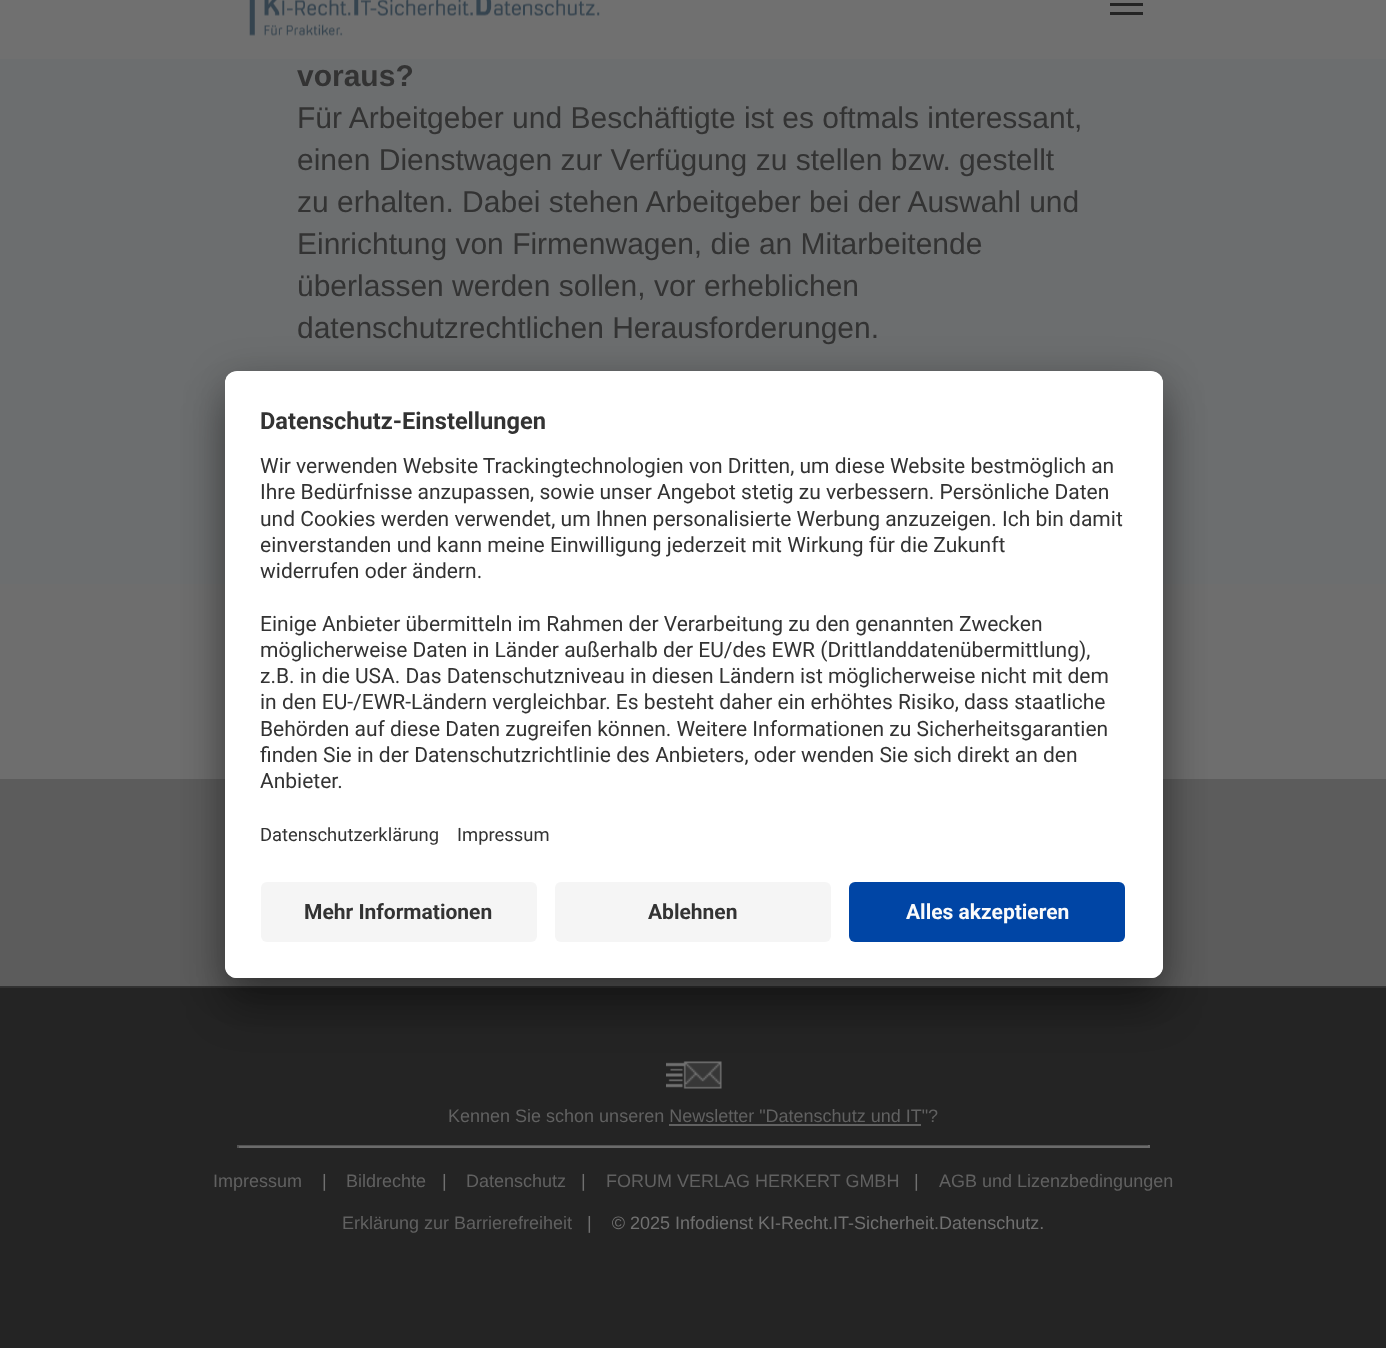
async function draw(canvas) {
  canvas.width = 1386;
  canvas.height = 1348;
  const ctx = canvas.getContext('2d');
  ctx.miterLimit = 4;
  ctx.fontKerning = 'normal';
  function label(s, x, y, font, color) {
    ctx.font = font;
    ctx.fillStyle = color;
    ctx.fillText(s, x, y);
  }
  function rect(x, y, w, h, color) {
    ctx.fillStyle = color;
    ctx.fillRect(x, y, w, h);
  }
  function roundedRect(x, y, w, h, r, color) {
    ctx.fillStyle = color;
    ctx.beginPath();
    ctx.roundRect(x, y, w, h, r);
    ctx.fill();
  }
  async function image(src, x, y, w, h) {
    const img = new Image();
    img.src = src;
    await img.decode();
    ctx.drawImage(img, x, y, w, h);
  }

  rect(0, 0, 1386, 1348, '#5c5c5c');
  rect(0, 0, 1386, 59, '#707070');
  await image('assets/img1.png', 249, 0, 351, 36);
  rect(1110, 3, 33, 3, '#242424');
  rect(1110, 12, 33, 3, '#242424');
  rect(0, 59, 1386, 525, '#6c6e6f');
  label('voraus?', 297, 86, 'bold 30px Liberation Sans', '#333');
  label('Für Arbeitgeber und Beschäftigte ist es oftmals interessant,', 297, 128, '30px Liberation Sans', '#333');
  label('einen Dienstwagen zur Verfügung zu stellen bzw. gestellt', 297, 170, '30px Liberation Sans', '#333');
  label('zu erhalten. Dabei stehen Arbeitgeber bei der Auswahl und', 297, 212, '30px Liberation Sans', '#333');
  label('Einrichtung von Firmenwagen, die an Mitarbeitende', 297, 254, '30px Liberation Sans', '#333');
  label('überlassen werden sollen, vor erheblichen', 297, 296, '30px Liberation Sans', '#333');
  label('datenschutzrechtlichen Herausforderungen.', 297, 338, '30px Liberation Sans', '#333');
  rect(0, 584, 1386, 195, '#6e6e6e');
  rect(0, 988, 1386, 360, '#242424');
  rect(0, 986, 1386, 2, '#323232');
  await image('assets/img2.png', 666, 1061, 56, 28);
  label('Kennen Sie schon unseren Newsletter "Datenschutz und IT"?', 448, 1122, '18px Liberation Sans', '#616161');
  rect(669, 1124, 252, 2, '#616161');
  rect(237, 1145, 912, 1, '#535353');
  rect(1148, 1145, 2, 3, '#6b6b6b');
  rect(237, 1146, 912, 2, '#6b6b6b');
  rect(237, 1145, 2, 3, '#535353');
  label('Impressum', 213, 1187, '18px Liberation Sans', '#616161');
  label('|', 322, 1187, '18px Liberation Sans', '#707070');
  label('Bildrechte', 346, 1187, '18px Liberation Sans', '#616161');
  label('|', 442, 1187, '18px Liberation Sans', '#707070');
  label('Datenschutz', 466, 1187, '18px Liberation Sans', '#616161');
  label('|', 581, 1187, '18px Liberation Sans', '#707070');
  label('FORUM VERLAG HERKERT GMBH', 606, 1187, '18px Liberation Sans', '#616161');
  label('|', 914, 1187, '18px Liberation Sans', '#707070');
  label('AGB und Lizenzbedingungen', 939, 1187, '18px Liberation Sans', '#616161');
  label('Erklärung zur Barrierefreiheit', 342, 1229, '18px Liberation Sans', '#616161');
  label('|    © 2025 Infodienst KI-Recht.IT-Sicherheit.Datenschutz.', 587, 1229, '18px Liberation Sans', '#707070');
  ctx.fillStyle = '#0000004d';
  ctx.filter = 'blur(21px)';
  ctx.beginPath();
  ctx.roundRect(225, 401, 938, 607, 12);
  ctx.fill();
  ctx.filter = 'none';
  ctx.fillStyle = '#00000038';
  ctx.filter = 'blur(19.5px)';
  ctx.beginPath();
  ctx.roundRect(225, 378, 938, 608, 12);
  ctx.fill();
  ctx.filter = 'none';
  roundedRect(225, 371, 938, 607, 12, '#fff');
  ctx.save();
  ctx.beginPath();
  ctx.roundRect(225, 371, 938, 607, 12);
  ctx.clip();
  ctx.beginPath();
  ctx.roundRect(225, 371, 938, 499, [12, 12, 0, 0]);
  ctx.clip();
  rect(225, 372, 938, 498, '#fff');
  ctx.restore();
  label('Datenschutz-Einstellungen', 260, 429, 'bold 23.6px Roboto', '#333');
  label('Wir verwenden Website Trackingtechnologien von Dritten, um diese Website bestmöglich an', 260, 473, '21px Roboto', '#333');
  label('Ihre Bedürfnisse anzupassen, sowie unser Angebot stetig zu verbessern. Persönliche Daten', 260, 499, '21px Roboto', '#333');
  label('und Cookies werden verwendet, um Ihnen personalisierte Werbung anzuzeigen. Ich bin damit', 260, 526, '21px Roboto', '#333');
  label('einverstanden und kann meine Einwilligung jederzeit mit Wirkung für die Zukunft', 260, 552, '21px Roboto', '#333');
  label('widerrufen oder ändern.', 260, 578, '21px Roboto', '#333');
  label('Einige Anbieter übermitteln im Rahmen der Verarbeitung zu den genannten Zwecken', 260, 631, '21px Roboto', '#333');
  label('möglicherweise Daten in Länder außerhalb der EU/des EWR (Drittlanddatenübermittlung),', 260, 657, '21px Roboto', '#333');
  label('z.B. in die USA. Das Datenschutzniveau in diesen Ländern ist möglicherweise nicht mit dem', 260, 683, '21px Roboto', '#333');
  label('in den EU-/EWR-Ländern vergleichbar. Es besteht daher ein erhöhtes Risiko, dass staatliche', 260, 709, '21px Roboto', '#333');
  label('Behörden auf diese Daten zugreifen können. Weitere Informationen zu Sicherheitsgarantien', 260, 736, '21px Roboto', '#333');
  label('finden Sie in der Datenschutzrichtlinie des Anbieters, oder wenden Sie sich direkt an den', 260, 762, '21px Roboto', '#333');
  label('Anbieter.', 260, 788, '21px Roboto', '#333');
  label('Datenschutzerklärung', 260, 841, '18.4px Roboto', '#333');
  label('Impressum', 457, 841, '18.4px Roboto', '#333');
  ctx.fillStyle = '#fff';
  ctx.beginPath();
  ctx.roundRect(225, 870, 938, 108, [0, 0, 12, 12]);
  ctx.fill();
  roundedRect(261, 882, 276, 60, 6, '#f5f5f5');
  label('Mehr Informationen', 304, 919, 'bold 21px Roboto', '#333');
  roundedRect(555, 882, 276, 60, 6, '#f5f5f5');
  label('Ablehnen', 648, 919, 'bold 21px Roboto', '#333');
  roundedRect(849, 882, 276, 60, 6, '#0045a5');
  label('Alles akzeptieren', 906, 919, 'bold 21px Roboto', '#fafafa');
}

draw(document.querySelector('canvas'));
